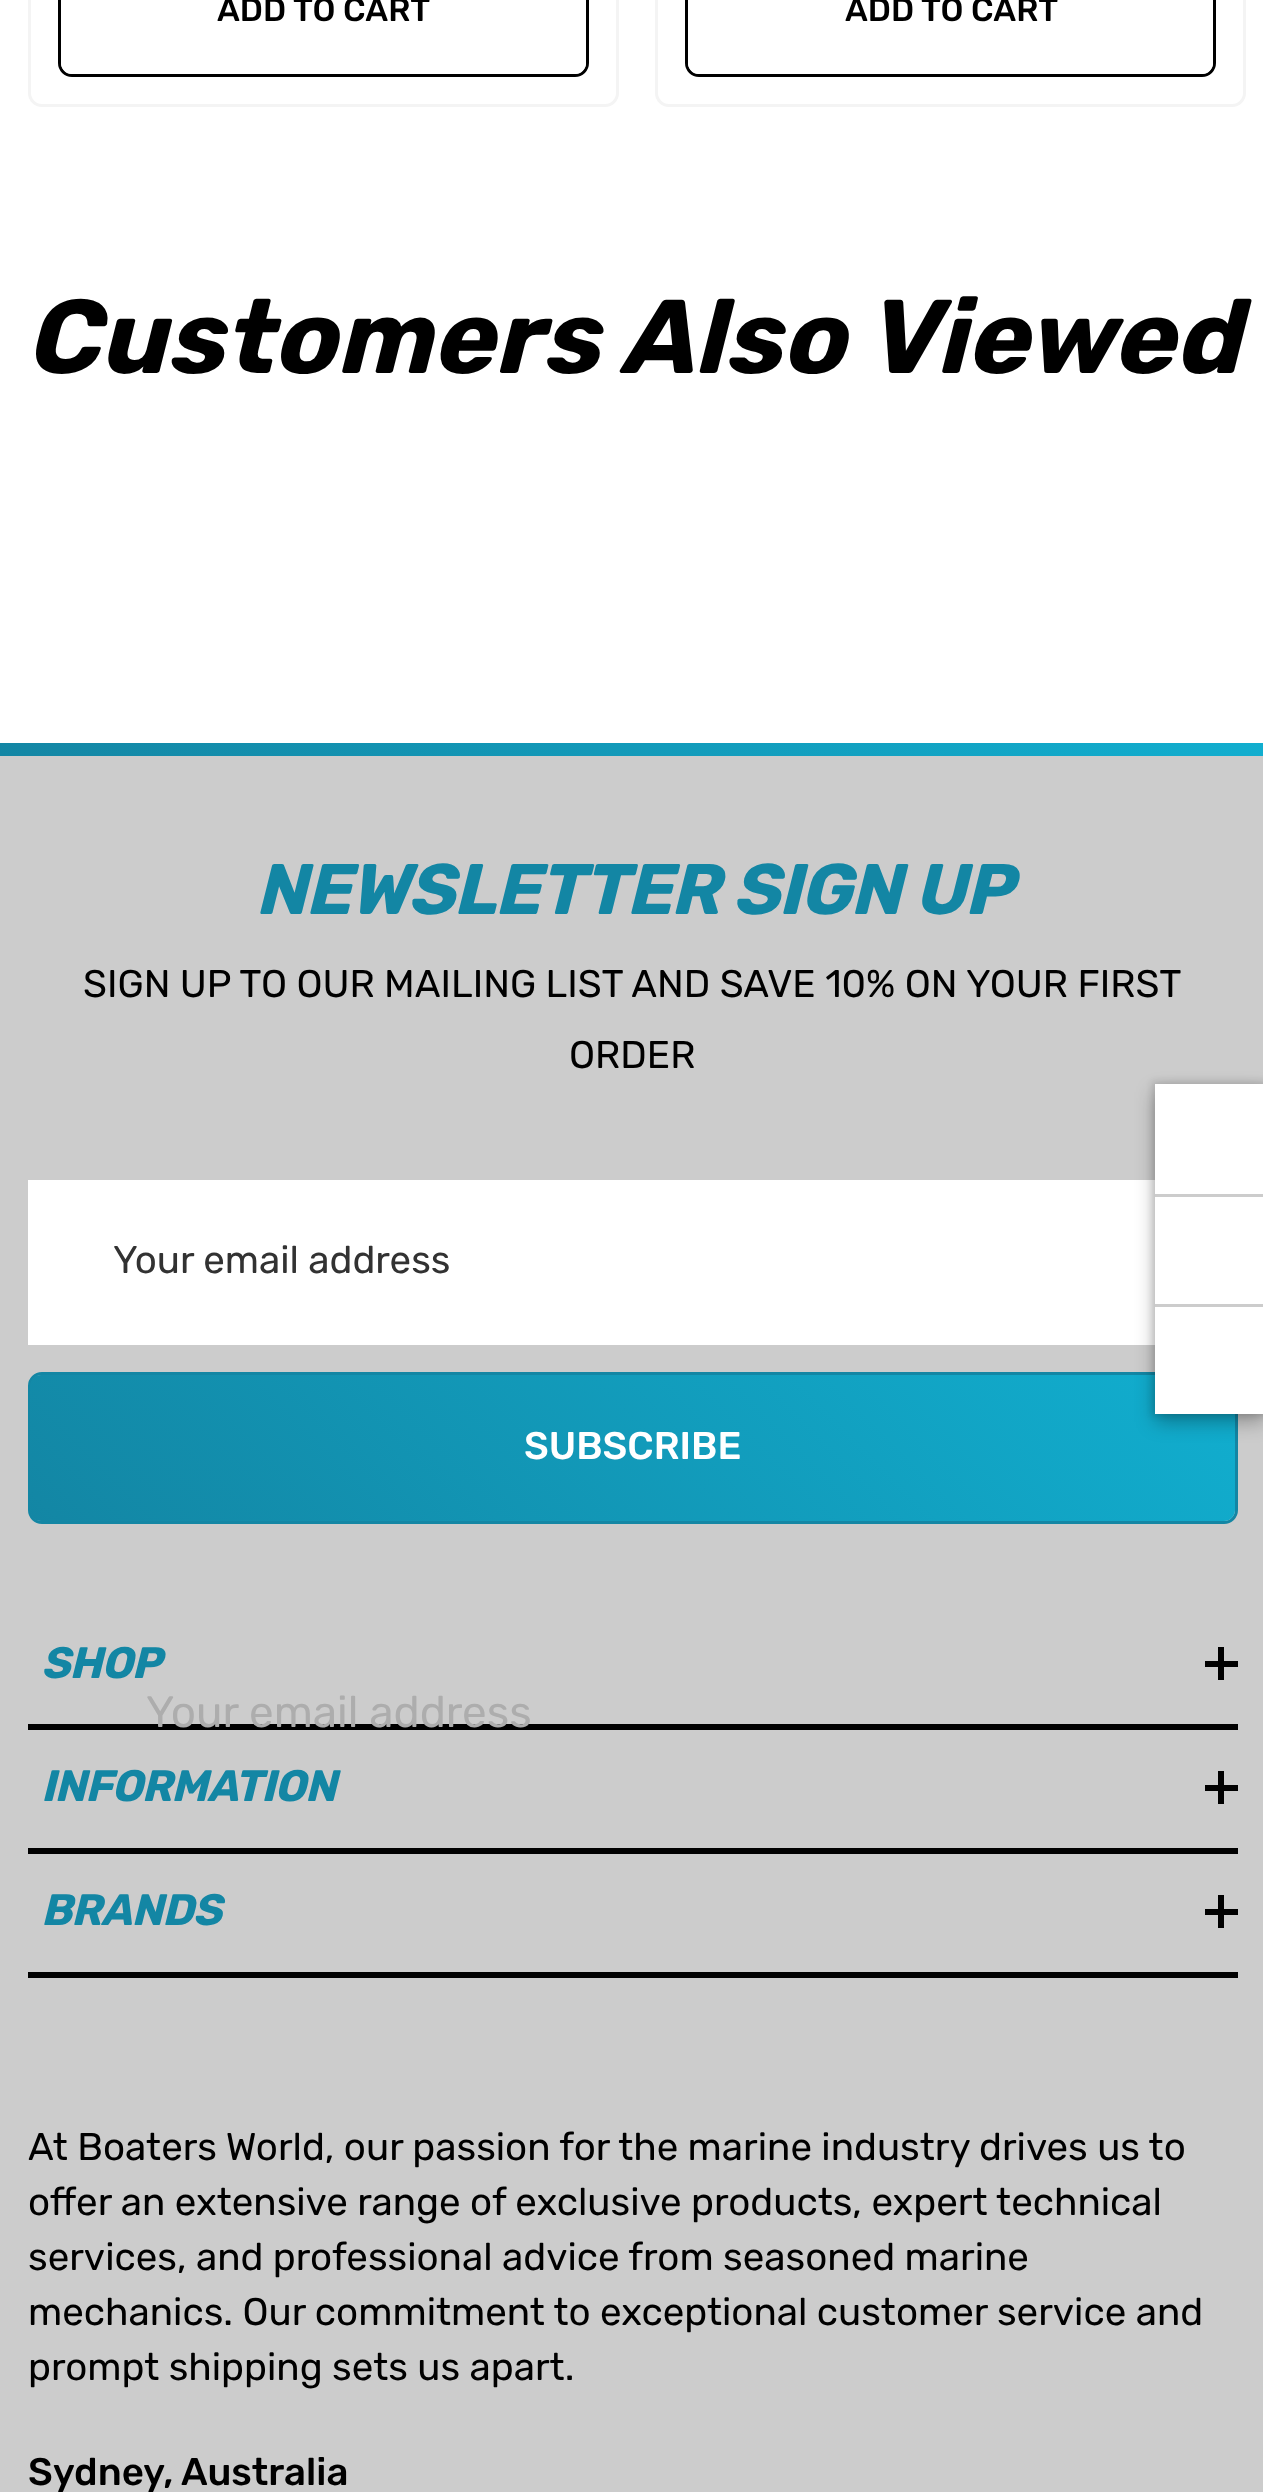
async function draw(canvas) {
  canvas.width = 1263;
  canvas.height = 2492;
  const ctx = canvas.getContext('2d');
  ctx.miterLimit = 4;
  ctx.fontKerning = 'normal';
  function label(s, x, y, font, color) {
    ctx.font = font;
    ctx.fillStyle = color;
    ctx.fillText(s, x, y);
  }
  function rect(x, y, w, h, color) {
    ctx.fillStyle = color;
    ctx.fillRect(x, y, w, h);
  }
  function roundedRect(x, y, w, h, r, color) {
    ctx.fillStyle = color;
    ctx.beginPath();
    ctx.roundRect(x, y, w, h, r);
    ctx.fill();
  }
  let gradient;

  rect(0, 0, 1263, 2492, '#fff');
  ctx.beginPath();
  ctx.roundRect(29.5, -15.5, 588, 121, 12.5);
  ctx.strokeStyle = '#f4f4f4';
  ctx.lineWidth = 3;
  ctx.stroke();
  ctx.beginPath();
  ctx.roundRect(59.5, -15.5, 528, 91, 12.5);
  ctx.strokeStyle = '#000';
  ctx.stroke();
  roundedRect(61, -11, 525, 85, 11, '#fff');
  label('ADD TO CART', 217, 21, '500 33px Rubik', '#000');
  ctx.beginPath();
  ctx.roundRect(656.5, -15.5, 588, 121, 12.5);
  ctx.strokeStyle = '#f4f4f4';
  ctx.stroke();
  ctx.beginPath();
  ctx.roundRect(686.5, -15.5, 528, 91, 12.5);
  ctx.strokeStyle = '#000';
  ctx.stroke();
  roundedRect(688, -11, 525, 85, 11, '#fff');
  label('ADD TO CART', 845, 21, '500 33px Rubik', '#000');
  label('Customers Also Viewed', 25, 373, 'italic bold 104.5px Rubik', '#000');
  rect(0, 756, 1263, 1736, '#ccc');
  gradient = ctx.createLinearGradient(313, 1069, 952, 430);
  gradient.addColorStop(0, '#1386a4');
  gradient.addColorStop(1, '#11aecf');
  ctx.fillStyle = gradient;
  ctx.fillRect(0, 743, 1263, 13);
  ctx.letterSpacing = '-1.4px';
  label('NEWSLETTER SIGN UP', 255, 914, 'italic bold 71.5px Rubik', '#1386a4');
  ctx.letterSpacing = '0px';
  label('SIGN UP TO OUR MAILING LIST AND SAVE 10% ON YOUR FIRST', 83, 997, '38.5px Rubik', '#000');
  label('ORDER', 569, 1068, '38.5px Rubik', '#000');
  rect(28, 1180, 1127, 165, '#fff');
  label('Your email address', 113, 1273, '38.5px Rubik', '#323232');
  ctx.beginPath();
  ctx.roundRect(29.5, 1373.5, 1207, 149, 12.5);
  ctx.strokeStyle = '#1386a4';
  ctx.stroke();
  gradient = ctx.createLinearGradient(295, 1785, 970, 1110);
  gradient.addColorStop(0, '#1386a4');
  gradient.addColorStop(1, '#11aecf');
  ctx.fillStyle = gradient;
  ctx.beginPath();
  ctx.roundRect(30, 1375, 1205, 146, 11);
  ctx.fill();
  label('SUBSCRIBE', 524, 1459, '500 38.5px Rubik', '#fff');
  rect(28, 1724, 1210, 6, '#000');
  ctx.letterSpacing = '-0.9px';
  label('SHOP', 41, 1678, 'italic bold 44px Rubik', '#1386a4');
  rect(1218, 1647, 6, 33, '#000');
  rect(1205, 1661, 33, 6, '#000');
  rect(28, 1848, 1210, 6, '#000');
  label('INFORMATION', 41, 1801, 'italic bold 44px Rubik', '#1386a4');
  rect(1218, 1771, 6, 33, '#000');
  rect(1205, 1785, 33, 6, '#000');
  rect(28, 1972, 1210, 6, '#000');
  label('BRANDS', 41, 1925, 'italic bold 44px Rubik', '#1386a4');
  rect(1218, 1895, 6, 33, '#000');
  rect(1205, 1909, 33, 6, '#000');
  ctx.letterSpacing = '0px';
  label('At Boaters World, our passion for the marine industry drives us to', 28, 2160, '38.5px Rubik', '#000');
  label('offer an extensive range of exclusive products, expert technical', 28, 2215, '38.5px Rubik', '#000');
  label('services, and professional advice from seasoned marine', 28, 2270, '38.5px Rubik', '#000');
  label('mechanics. Our commitment to exceptional customer service and', 28, 2325, '38.5px Rubik', '#000');
  label('prompt shipping sets us apart.', 28, 2380, '38.5px Rubik', '#000');
  label('Sydney,', 28, 2485, '500 38.5px Rubik', '#000');
  label('Australia', 181, 2485, '500 38.5px Rubik', '#000');
  ctx.fillStyle = '#0000004d';
  ctx.filter = 'blur(9.5px)';
  ctx.beginPath();
  ctx.rect(1155, 1092, 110, 330);
  ctx.fill();
  ctx.filter = 'none';
  ctx.fillStyle = '#0000001a';
  ctx.filter = 'blur(3px)';
  ctx.beginPath();
  ctx.rect(1152, 1081, 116, 335);
  ctx.fill();
  ctx.filter = 'none';
  rect(1155, 1084, 108, 330, '#fff');
  rect(1155, 1194, 108, 3, '#ccc');
  rect(1155, 1304, 108, 3, '#ccc');
  label('Your email address', 146, 1727, '44px Rubik', '#adadad');
}

draw(document.querySelector('canvas'));
